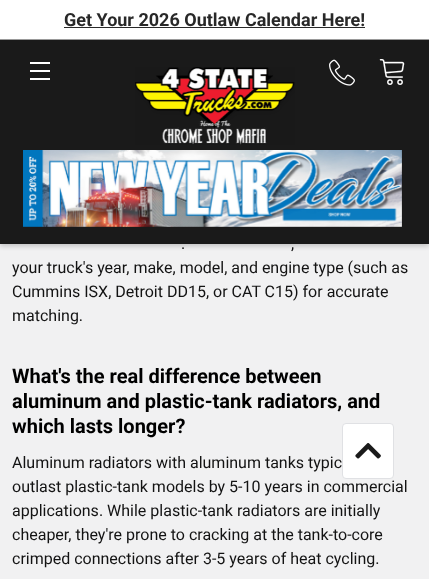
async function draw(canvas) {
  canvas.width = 429;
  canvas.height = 579;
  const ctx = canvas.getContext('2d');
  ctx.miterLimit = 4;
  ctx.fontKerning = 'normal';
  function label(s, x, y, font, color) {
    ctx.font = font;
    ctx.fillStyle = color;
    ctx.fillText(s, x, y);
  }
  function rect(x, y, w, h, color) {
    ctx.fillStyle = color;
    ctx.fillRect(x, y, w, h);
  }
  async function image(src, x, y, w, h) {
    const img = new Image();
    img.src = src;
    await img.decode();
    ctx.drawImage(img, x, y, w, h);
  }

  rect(0, 0, 429, 579, '#f1f1f2');
  ctx.fillStyle = '#00000033';
  ctx.filter = 'blur(2.5px)';
  ctx.beginPath();
  ctx.rect(0, 2, 429, 244);
  ctx.fill();
  ctx.filter = 'none';
  rect(0, 40, 429, 204, '#1a1a1a');
  rect(0, 0, 429, 39, '#fff');
  label('Get Your 2026 Outlaw Calendar Here!', 64, 26, 'bold 18px Roboto', '#282828');
  rect(64, 27, 301, 1, '#282828');
  rect(0, 39, 429, 1, '#999');
  rect(30, 70, 20, 2, '#fff');
  rect(30, 62, 20, 2, '#fff');
  rect(30, 78, 20, 2, '#fff');
  await image('assets/img1.png', 135, 67, 160, 78);
  await image('assets/img2.png', 329, 59, 26, 27);
  await image('assets/img3.png', 379, 59, 26, 26);
  await image('assets/img4.png', 23, 150, 379, 77);
  label('.', 181, 249, '16px Roboto', '#131313');
  label(',', 291, 249, '16px Roboto', '#131313');
  label('your truck\'s year, make, model, and engine type (such as', 12, 273, '16px Roboto', '#131313');
  label('Cummins ISX, Detroit DD15, or CAT C15) for accurate', 12, 297, '16px Roboto', '#131313');
  label('matching.', 12, 321, '16px Roboto', '#131313');
  label('What\'s the real difference between', 12, 383, 'bold 20px Roboto', '#000');
  label('aluminum and plastic-tank radiators, and', 12, 408, 'bold 20px Roboto', '#000');
  label('which lasts longer?', 12, 433, 'bold 20px Roboto', '#000');
  label('Aluminum radiators with aluminum tanks typic', 12, 468, '16px Roboto', '#131313');
  label('outlast plastic-tank models by 5-10 years in commercial', 12, 492, '16px Roboto', '#131313');
  label('applications. While plastic-tank radiators are initially', 12, 516, '16px Roboto', '#131313');
  label('cheaper, they\'re prone to cracking at the tank-to-core', 12, 540, '16px Roboto', '#131313');
  label('crimped connections after 3-5 years of heat cycling.', 12, 564, '16px Roboto', '#131313');
  ctx.fillStyle = '#fff';
  ctx.beginPath();
  ctx.roundRect(342.5, 423.5, 51, 55, 3.5);
  ctx.fill();
  ctx.strokeStyle = '#e0e1e4';
  ctx.stroke();
  await image('assets/img5.png', 355, 443, 26, 16);
}

draw(document.querySelector('canvas'));
